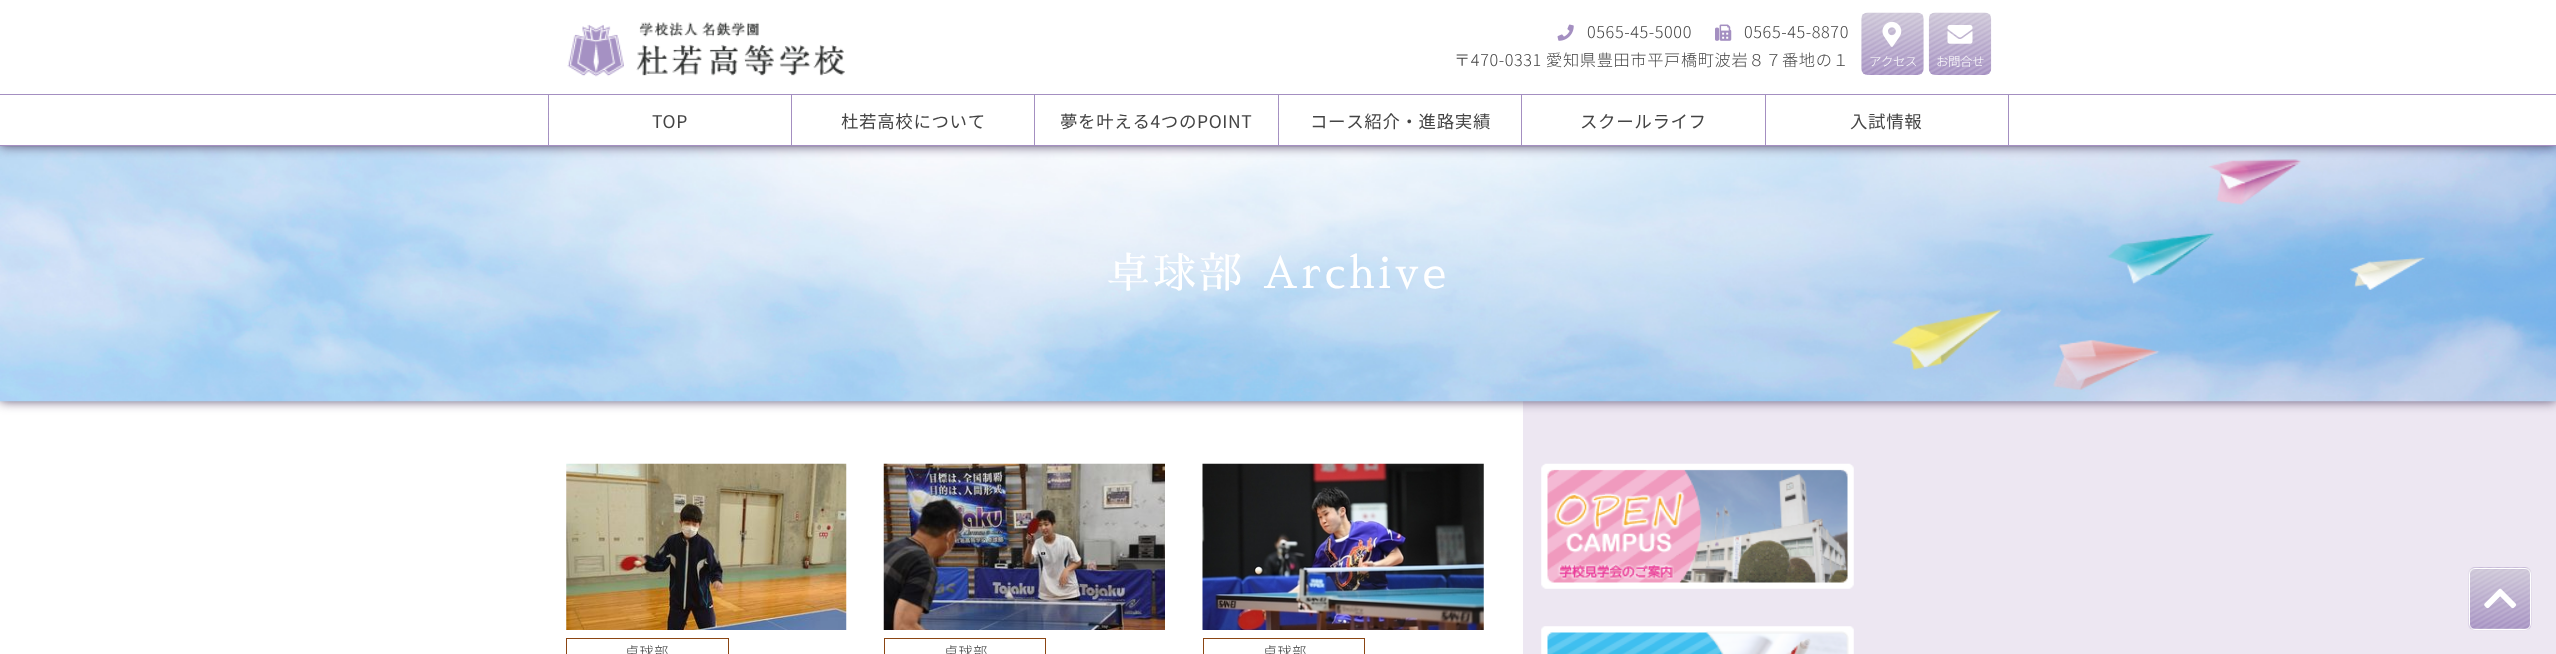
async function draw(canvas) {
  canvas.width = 2556;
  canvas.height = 654;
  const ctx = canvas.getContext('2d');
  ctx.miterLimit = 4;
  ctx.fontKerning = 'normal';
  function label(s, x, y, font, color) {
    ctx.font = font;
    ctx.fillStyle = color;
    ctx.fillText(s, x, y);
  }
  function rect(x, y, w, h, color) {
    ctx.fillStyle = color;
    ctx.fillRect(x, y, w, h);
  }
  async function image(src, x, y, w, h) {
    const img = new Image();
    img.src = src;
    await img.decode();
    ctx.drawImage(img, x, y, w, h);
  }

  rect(0, 0, 2556, 654, '#fff');
  rect(1790, 146, 766, 508, '#ede7f2');
  rect(1523, 401, 267, 253, '#ede7f2');
  ctx.fillStyle = '#584b6b';
  ctx.filter = 'blur(6px)';
  ctx.beginPath();
  ctx.rect(0, 146, 2556, 255);
  ctx.fill();
  ctx.filter = 'none';
  await image('assets/img9.png', 0, 146, 2556, 256);
  ctx.filter = 'blur(6px)';
  ctx.beginPath();
  ctx.rect(0, 0, 2556, 146);
  ctx.fill();
  ctx.filter = 'none';
  rect(0, 0, 2556, 145, '#fff');
  await image('assets/img1.png', 567, 22, 278, 55);
  await image('assets/img2.png', 1557, 24, 17, 17);
  ctx.letterSpacing = '0.6px';
  label('0565-45-5000', 1587, 38, '300 16.25px Noto Sans JP', '#444');
  await image('assets/img3.png', 1715, 24, 17, 17);
  label('0565-45-8870', 1744, 38, '300 16.25px Noto Sans JP', '#444');
  label('〒470-0331 愛知県豊田市平戸橋町波岩８７番地の１', 1454, 66, '300 16.25px Noto Sans JP', '#444');
  await image('assets/img4.png', 1861, 12, 63, 63);
  await image('assets/img5.png', 1882, 21, 20, 26);
  ctx.letterSpacing = '-0.5px';
  label('アクセス', 1869, 66, '300 12.5px Noto Sans JP', '#fff');
  await image('assets/img6.png', 1928, 12, 64, 63);
  await image('assets/img7.png', 1947, 25, 26, 19);
  label('お問合せ', 1936, 66, '300 12.5px Noto Sans JP', '#fff');
  rect(0, 94, 2556, 1, '#a48fc1');
  rect(0, 145, 2556, 1, '#a48fc1');
  rect(548, 95, 1, 50, '#a48fc1');
  await image('assets/img8.png', 548, 95, 1, 47);
  rect(791, 95, 1, 50, '#a48fc1');
  ctx.letterSpacing = '0.6px';
  label('TOP', 652, 128, '17.5px Noto Sans JP', '#444');
  rect(1034, 95, 1, 50, '#a48fc1');
  label('杜若高校について', 841, 128, '17.5px Noto Sans JP', '#444');
  rect(1278, 95, 1, 50, '#a48fc1');
  label('夢を叶える4つのPOINT', 1060, 128, '17.5px Noto Sans JP', '#444');
  await image('assets/img8.png', 1278, 95, 1, 47);
  rect(1521, 95, 1, 50, '#a48fc1');
  label('コース紹介・進路実績', 1310, 128, '17.5px Noto Sans JP', '#444');
  rect(1765, 95, 1, 50, '#a48fc1');
  label('スクールライフ', 1580, 128, '17.5px Noto Sans JP', '#444');
  rect(2008, 95, 1, 50, '#a48fc1');
  label('入試情報', 1850, 128, '17.5px Noto Sans JP', '#444');
  ctx.letterSpacing = '3.75px';
  label('卓球部 Archive', 1107, 288, '42.5px Sawarabi Mincho', '#fff');
  await image('assets/img10.png', 2468, 567, 64, 64);
  ctx.beginPath();
  ctx.roundRect(2469.5, 568.5, 61, 61, 5.5);
  ctx.strokeStyle = '#fff';
  ctx.stroke();
  await image('assets/img11.png', 2484, 588, 33, 21);
  await image('assets/img12.png', 566, 463, 281, 167);
  ctx.strokeStyle = '#8b4513';
  ctx.strokeRect(566.5, 638.5, 162, 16);
  ctx.letterSpacing = '0.6px';
  label('卓球部', 625, 657, '300 14px Noto Sans JP', '#333');
  await image('assets/img13.png', 883, 463, 282, 167);
  ctx.strokeRect(884.5, 638.5, 161, 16);
  label('卓球部', 944, 657, '300 14px Noto Sans JP', '#333');
  await image('assets/img14.png', 1202, 463, 282, 167);
  ctx.strokeRect(1203.5, 638.5, 161, 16);
  label('卓球部', 1263, 657, '300 14px Noto Sans JP', '#333');
  await image('assets/img15.png', 1541, 463, 313, 126);
  await image('assets/img16.png', 1541, 626, 313, 28);
}

draw(document.querySelector('canvas'));
